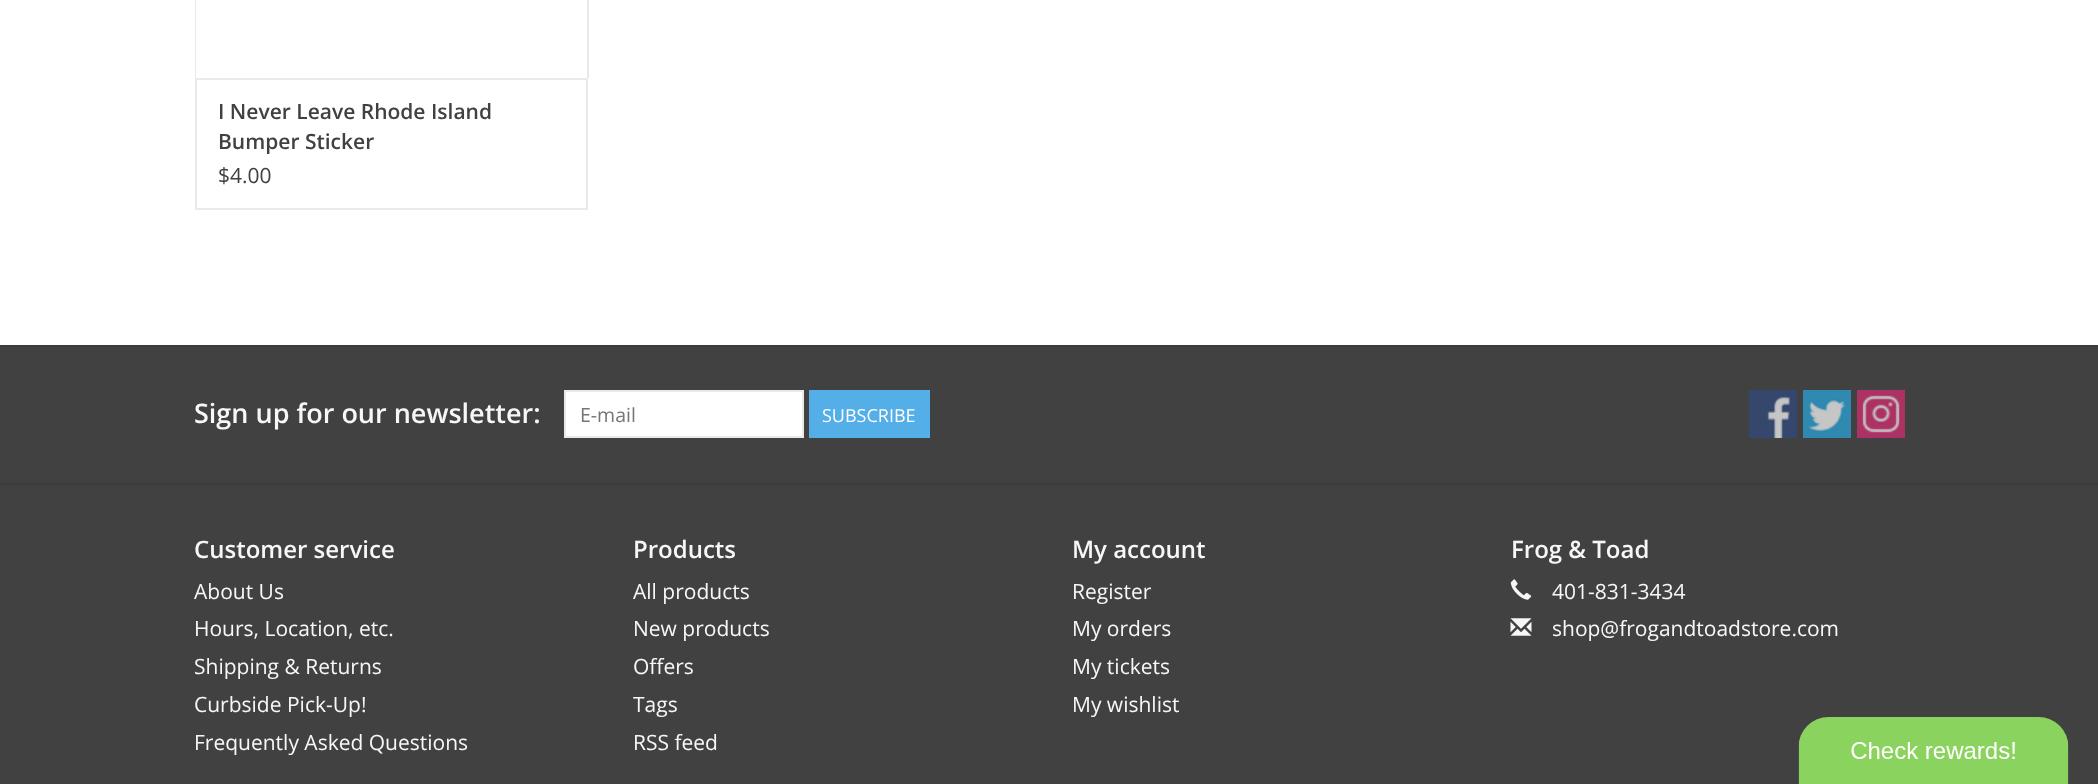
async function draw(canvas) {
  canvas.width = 2098;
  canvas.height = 784;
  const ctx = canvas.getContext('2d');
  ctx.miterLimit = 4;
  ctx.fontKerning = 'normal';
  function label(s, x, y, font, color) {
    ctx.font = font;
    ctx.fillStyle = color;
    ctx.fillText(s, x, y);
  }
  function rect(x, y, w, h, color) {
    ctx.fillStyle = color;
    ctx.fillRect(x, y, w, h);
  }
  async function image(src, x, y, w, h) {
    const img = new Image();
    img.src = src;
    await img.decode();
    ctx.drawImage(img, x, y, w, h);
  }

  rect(0, 0, 2098, 784, '#fff');
  rect(587, 0, 2, 78, '#eaeaea');
  rect(195, 0, 1, 78, '#eaeaea');
  ctx.strokeStyle = '#eaeaea';
  ctx.lineWidth = 2;
  ctx.strokeRect(196, 79, 391, 130);
  label('I Never Leave Rhode Island', 218, 119, '600 21px Open Sans', '#414141');
  label('Bumper Sticker', 218, 149, '600 21px Open Sans', '#414141');
  label('$4.00', 218, 183, '21px Open Sans', '#414141');
  rect(0, 347, 2098, 437, '#414141');
  rect(0, 345, 2098, 2, '#3b3b3b');
  label('Sign up for our newsletter:', 194, 423, '600 27px Open Sans', '#f7f7f7');
  ctx.fillStyle = '#fff';
  ctx.beginPath();
  ctx.rect(565, 391, 238, 46);
  ctx.fill();
  ctx.strokeStyle = '#e9e9e9';
  ctx.stroke();
  label('E-mail', 580, 422, '19.5px Open Sans', '#757575');
  rect(809, 390, 121, 48, '#54afe9');
  label('SUBSCRIBE', 822, 422, '18px Open Sans', '#fff');
  await image('assets/img1.png', 1749, 390, 48, 48);
  await image('assets/img2.png', 1803, 390, 48, 48);
  await image('assets/img3.png', 1857, 390, 48, 48);
  rect(0, 483, 2098, 2, '#3b3b3b');
  label('Customer service', 194, 558, '600 24px Open Sans', '#f7f7f7');
  label('About Us', 194, 599, '21px Open Sans', '#f7f7f7');
  label('Hours, Location, etc.', 194, 636, '21px Open Sans', '#f7f7f7');
  label('Shipping & Returns', 194, 674, '21px Open Sans', '#f7f7f7');
  label('Curbside Pick-Up!', 194, 712, '21px Open Sans', '#f7f7f7');
  label('Frequently Asked Questions', 194, 750, '21px Open Sans', '#f7f7f7');
  label('Products', 633, 558, '600 24px Open Sans', '#f7f7f7');
  label('All products', 633, 599, '21px Open Sans', '#f7f7f7');
  label('New products', 633, 636, '21px Open Sans', '#f7f7f7');
  label('Offers', 633, 674, '21px Open Sans', '#f7f7f7');
  label('Tags', 633, 712, '21px Open Sans', '#f7f7f7');
  label('RSS feed', 633, 750, '21px Open Sans', '#f7f7f7');
  label('My account', 1072, 558, '600 24px Open Sans', '#f7f7f7');
  label('Register', 1072, 599, '21px Open Sans', '#f7f7f7');
  label('My orders', 1072, 636, '21px Open Sans', '#f7f7f7');
  label('My tickets', 1072, 674, '21px Open Sans', '#f7f7f7');
  label('My wishlist', 1072, 712, '21px Open Sans', '#f7f7f7');
  label('Frog & Toad', 1511, 558, '600 24px Open Sans', '#f7f7f7');
  await image('assets/img4.png', 1510, 579, 22, 21);
  label('401-831-3434', 1552, 599, '21px Open Sans', '#f7f7f7');
  await image('assets/img5.png', 1510, 618, 22, 18);
  label('shop@frogandtoadstore.com', 1552, 636, '21px Open Sans', '#f7f7f7');
  await image('assets/img6.png', 1798, 717, 271, 67);
}

draw(document.querySelector('canvas'));
